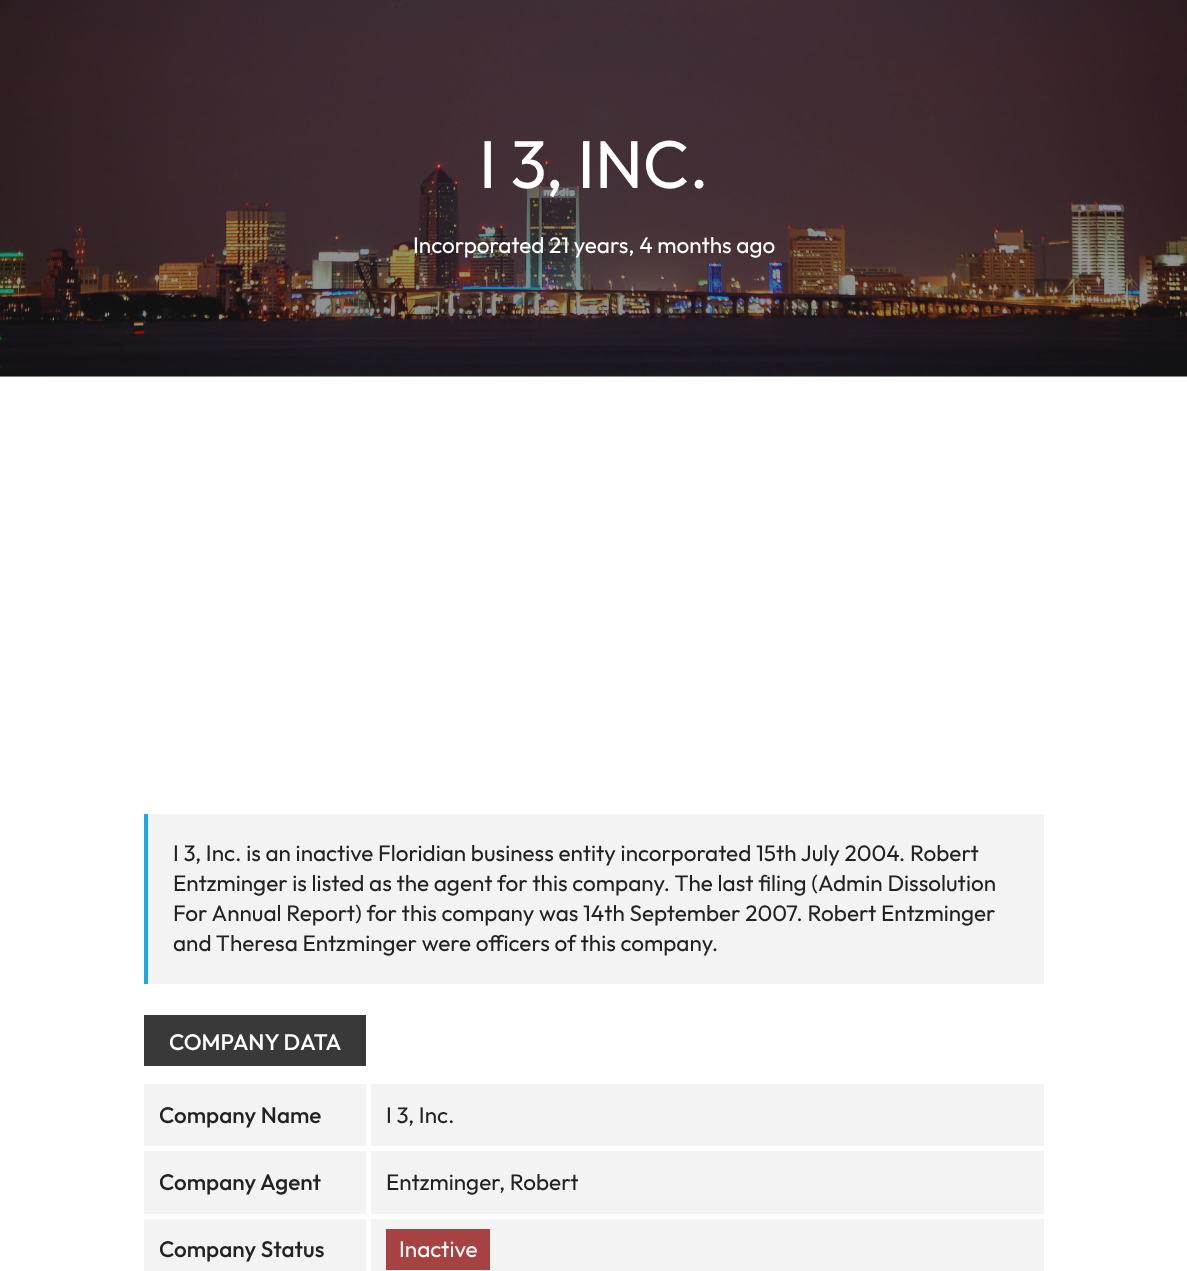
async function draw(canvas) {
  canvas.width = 1187;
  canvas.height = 1271;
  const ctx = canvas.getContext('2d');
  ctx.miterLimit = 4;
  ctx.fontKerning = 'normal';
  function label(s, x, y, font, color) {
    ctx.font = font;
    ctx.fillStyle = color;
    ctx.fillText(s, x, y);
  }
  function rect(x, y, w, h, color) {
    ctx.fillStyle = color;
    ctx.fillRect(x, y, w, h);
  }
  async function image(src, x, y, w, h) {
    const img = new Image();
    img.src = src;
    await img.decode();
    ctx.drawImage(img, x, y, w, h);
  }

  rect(0, 0, 1187, 1271, '#fff');
  await image('assets/img1.png', 0, 0, 1187, 377);
  label('I 3, INC.', 479, 188, '67.5px Outfit', '#fff');
  label('Incorporated 21 years, 4 months ago', 413, 253, '22.5px Outfit', '#fff');
  rect(148, 814, 896, 170, '#f3f3f3');
  rect(144, 814, 4, 170, '#19a9e5');
  label('I 3, Inc. is an inactive Floridian business entity incorporated 15th July 2004. Robert', 173, 861, '22.5px Outfit', '#222');
  label('Entzminger is listed as the agent for this company. The last filing (Admin Dissolution', 173, 891, '22.5px Outfit', '#222');
  label('For Annual Report) for this company was 14th September 2007. Robert Entzminger', 173, 921, '22.5px Outfit', '#222');
  label('and Theresa Entzminger were officers of this company.', 173, 951, '22.5px Outfit', '#222');
  rect(144, 1015, 222, 51, '#393939');
  label('COMPANY DATA', 169, 1050, '500 22.5px Outfit', '#fff');
  rect(144, 1084, 222, 62, '#f3f3f3');
  label('Company Name', 159, 1123, '500 22.5px Outfit', '#222');
  rect(371, 1084, 673, 62, '#f3f3f3');
  label('I 3, Inc.', 386, 1123, '22.5px Outfit', '#222');
  rect(144, 1151, 222, 63, '#f3f3f3');
  label('Company Agent', 159, 1190, '500 22.5px Outfit', '#222');
  rect(371, 1151, 673, 63, '#f3f3f3');
  label('Entzminger, Robert', 386, 1190, '22.5px Outfit', '#222');
  rect(144, 1219, 222, 52, '#f3f3f3');
  label('Company Status', 159, 1257, '500 22.5px Outfit', '#222');
  rect(371, 1219, 673, 52, '#f3f3f3');
  rect(386, 1229, 104, 41, '#a64242');
  label('Inactive', 399, 1257, '22.5px Outfit', '#fff');
}

draw(document.querySelector('canvas'));
